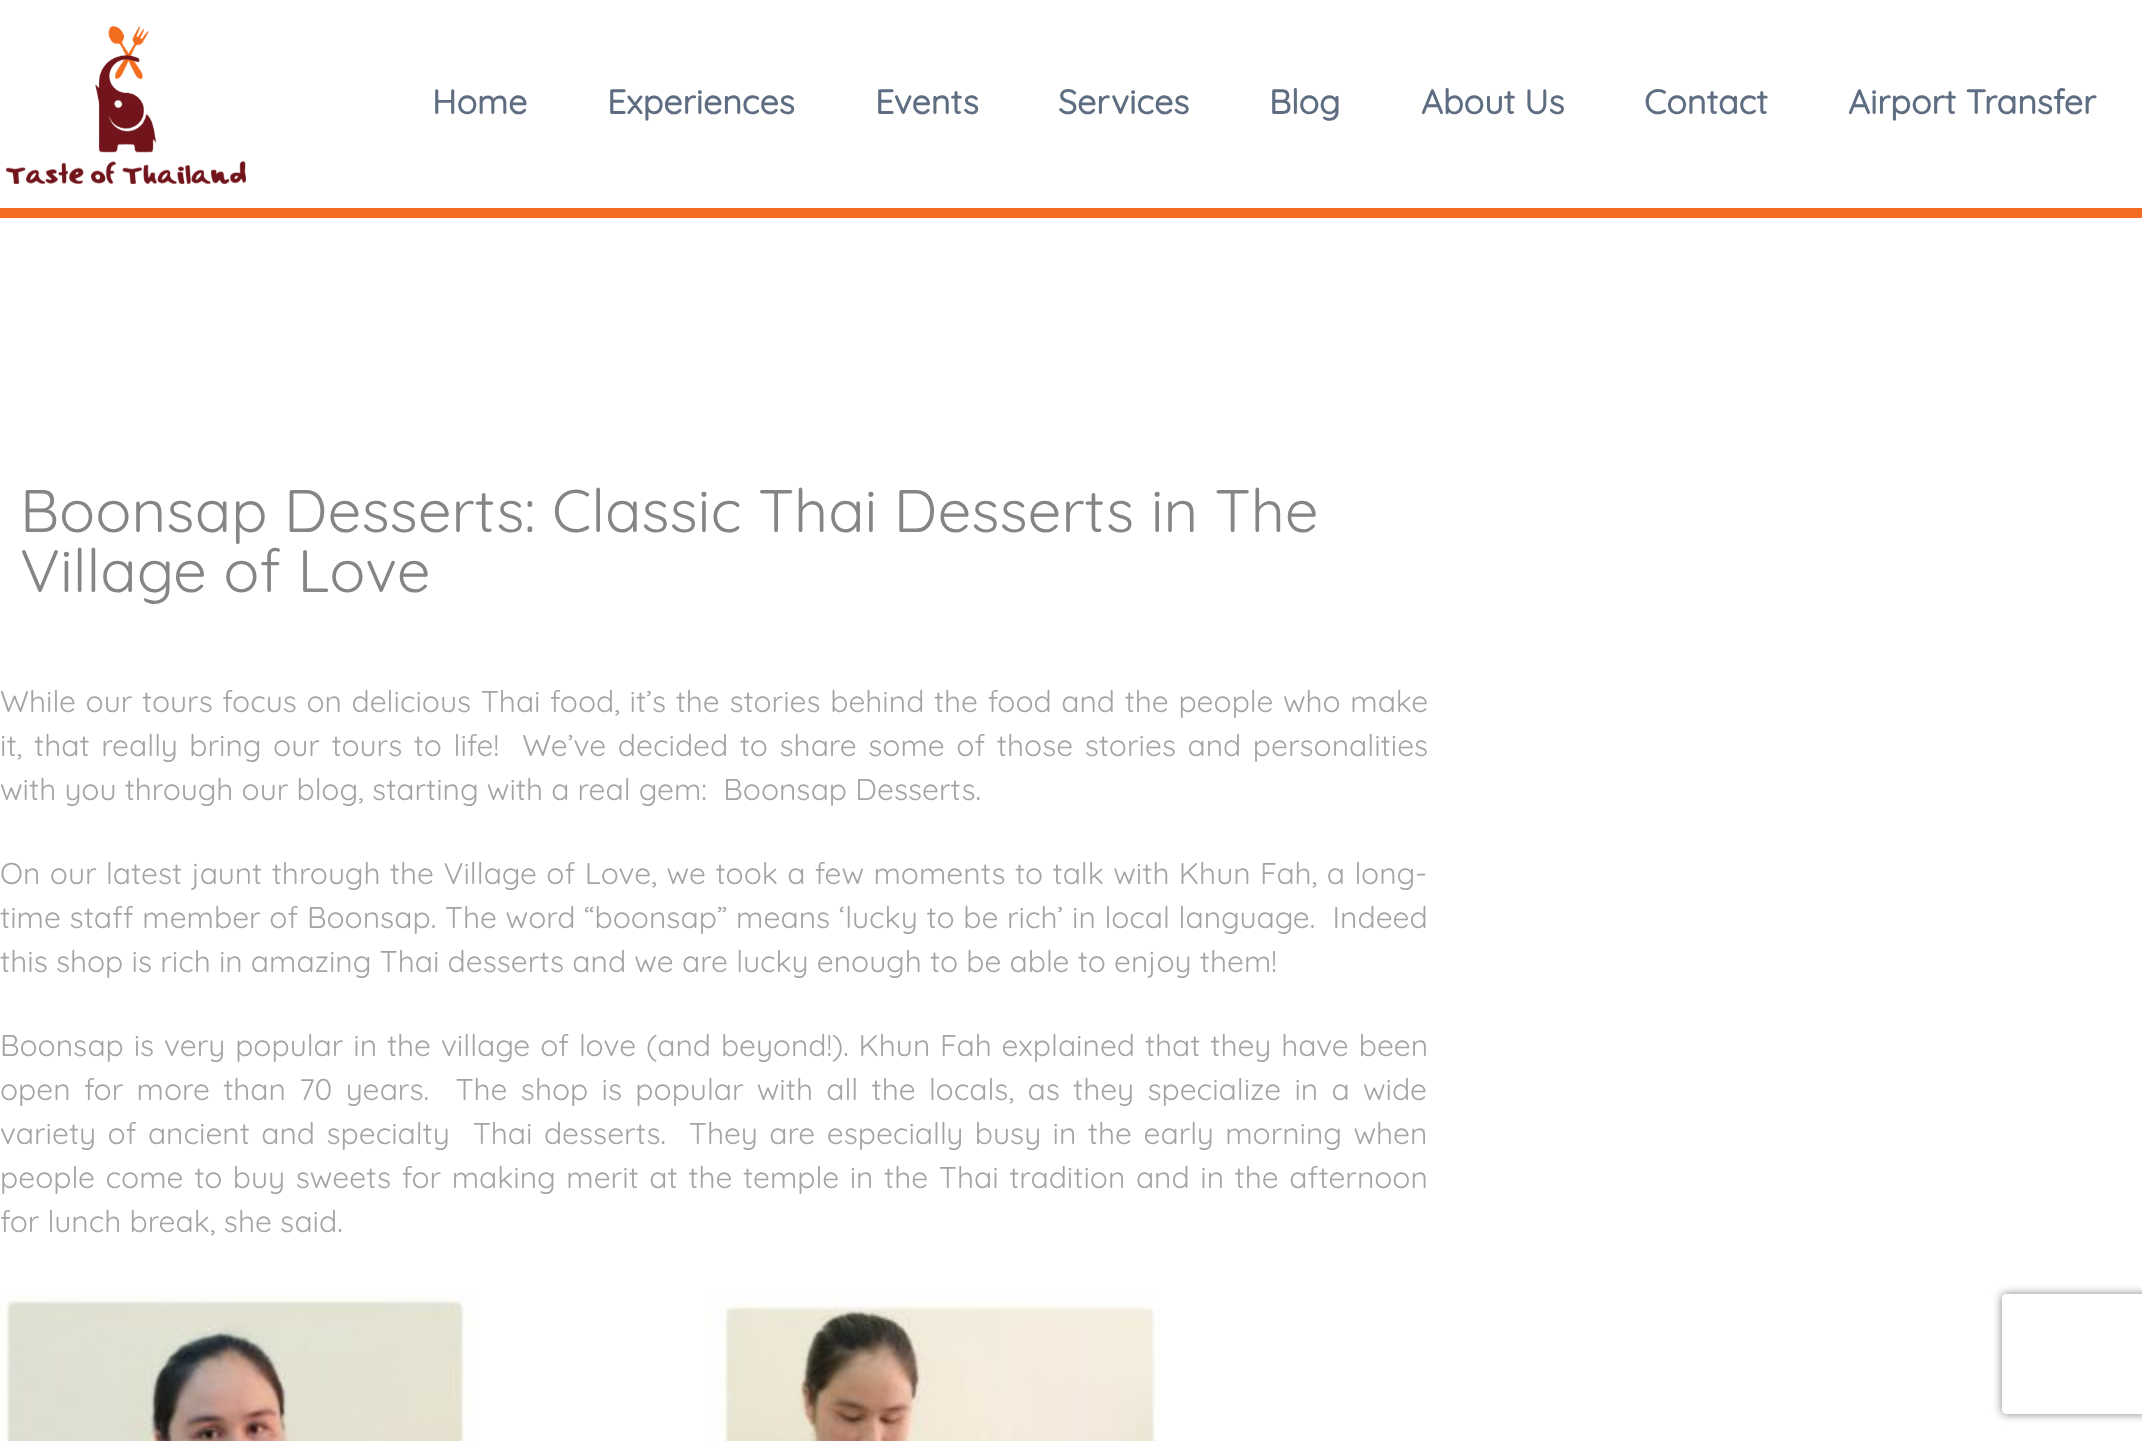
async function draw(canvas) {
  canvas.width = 2142;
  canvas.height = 1441;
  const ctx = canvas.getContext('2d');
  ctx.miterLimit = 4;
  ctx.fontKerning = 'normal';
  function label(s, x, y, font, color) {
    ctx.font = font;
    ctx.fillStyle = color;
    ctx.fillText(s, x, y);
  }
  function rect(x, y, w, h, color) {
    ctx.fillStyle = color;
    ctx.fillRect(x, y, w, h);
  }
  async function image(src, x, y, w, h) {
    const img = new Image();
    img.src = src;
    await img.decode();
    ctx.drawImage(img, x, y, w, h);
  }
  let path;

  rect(0, 0, 2142, 1441, '#fff');
  rect(0, 208, 2142, 10, '#f36c21');
  await image('assets/img1.png', 6, 26, 240, 158);
  label('Home', 432, 114, 'bold 34px Quicksand', '#5e6d81');
  label('Experiences', 607, 114, 'bold 34px Quicksand', '#5e6d81');
  label('Events', 875, 114, 'bold 34px Quicksand', '#5e6d81');
  label('Services', 1058, 114, 'bold 34px Quicksand', '#5e6d81');
  label('Blog', 1269, 114, 'bold 34px Quicksand', '#5e6d81');
  label('About Us', 1421, 114, 'bold 34px Quicksand', '#5e6d81');
  label('Contact', 1644, 114, 'bold 34px Quicksand', '#5e6d81');
  label('Airport Transfer', 1848, 114, 'bold 34px Quicksand', '#5e6d81');
  label('Boonsap Desserts: Classic Thai Desserts in The', 20, 532, '300 60px Quicksand', '#868585');
  label('Village of Love', 20, 592, '300 60px Quicksand', '#868585');
  ctx.wordSpacing = '1.4px';
  label('While our tours focus on delicious Thai food, it’s the stories behind the food and the people who make', 0, 712, '300 30px Quicksand', '#a4a4a4');
  ctx.wordSpacing = '3.4px';
  label('it, that really bring our tours to life!  We’ve decided to share some of those stories and personalities', 0, 756, '300 30px Quicksand', '#a4a4a4');
  ctx.wordSpacing = '0px';
  label('with you through our blog, starting with a real gem:  Boonsap Desserts.', 0, 800, '300 30px Quicksand', '#a4a4a4');
  ctx.wordSpacing = '1.25px';
  label('On our latest jaunt through the Village of Love, we took a few moments to talk with Khun Fah, a long-', 0, 884, '300 30px Quicksand', '#a4a4a4');
  ctx.wordSpacing = '0.5px';
  label('time staff member of Boonsap. The word “boonsap” means ‘lucky to be rich’ in local language.  Indeed', 0, 928, '300 30px Quicksand', '#a4a4a4');
  ctx.wordSpacing = '0px';
  label('this shop is rich in amazing Thai desserts and we are lucky enough to be able to enjoy them!', 0, 972, '300 30px Quicksand', '#a4a4a4');
  ctx.wordSpacing = '1.7px';
  label('Boonsap is very popular in the village of love (and beyond!). Khun Fah explained that they have been', 0, 1056, '300 30px Quicksand', '#a4a4a4');
  ctx.wordSpacing = '5.1px';
  label('open for more than 70 years.  The shop is popular with all the locals, as they specialize in a wide', 0, 1100, '300 30px Quicksand', '#a4a4a4');
  ctx.wordSpacing = '3.25px';
  label('variety of ancient and specialty  Thai desserts.  They are especially busy in the early morning when', 0, 1144, '300 30px Quicksand', '#a4a4a4');
  ctx.wordSpacing = '2.4px';
  label('people come to buy sweets for making merit at the temple in the Thai tradition and in the afternoon', 0, 1188, '300 30px Quicksand', '#a4a4a4');
  ctx.wordSpacing = '0px';
  label('for lunch break, she said.', 0, 1232, '300 30px Quicksand', '#a4a4a4');
  await image('assets/img2.png', 0, 1294, 480, 147);
  await image('assets/img3.png', 704, 1294, 456, 147);
  ctx.save();
  path = new Path2D('M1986 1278H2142V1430H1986ZM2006 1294H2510C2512 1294 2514 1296 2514 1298V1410C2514 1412 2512 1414 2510 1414H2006C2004 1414 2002 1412 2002 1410V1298C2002 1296 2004 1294 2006 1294Z');
  ctx.clip(path, 'evenodd');
  ctx.fillStyle = '#808080';
  ctx.filter = 'blur(5px)';
  ctx.beginPath();
  ctx.roundRect(2002, 1294, 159, 120, 4);
  ctx.fill();
  ctx.filter = 'none';
  ctx.restore();
}

draw(document.querySelector('canvas'));
